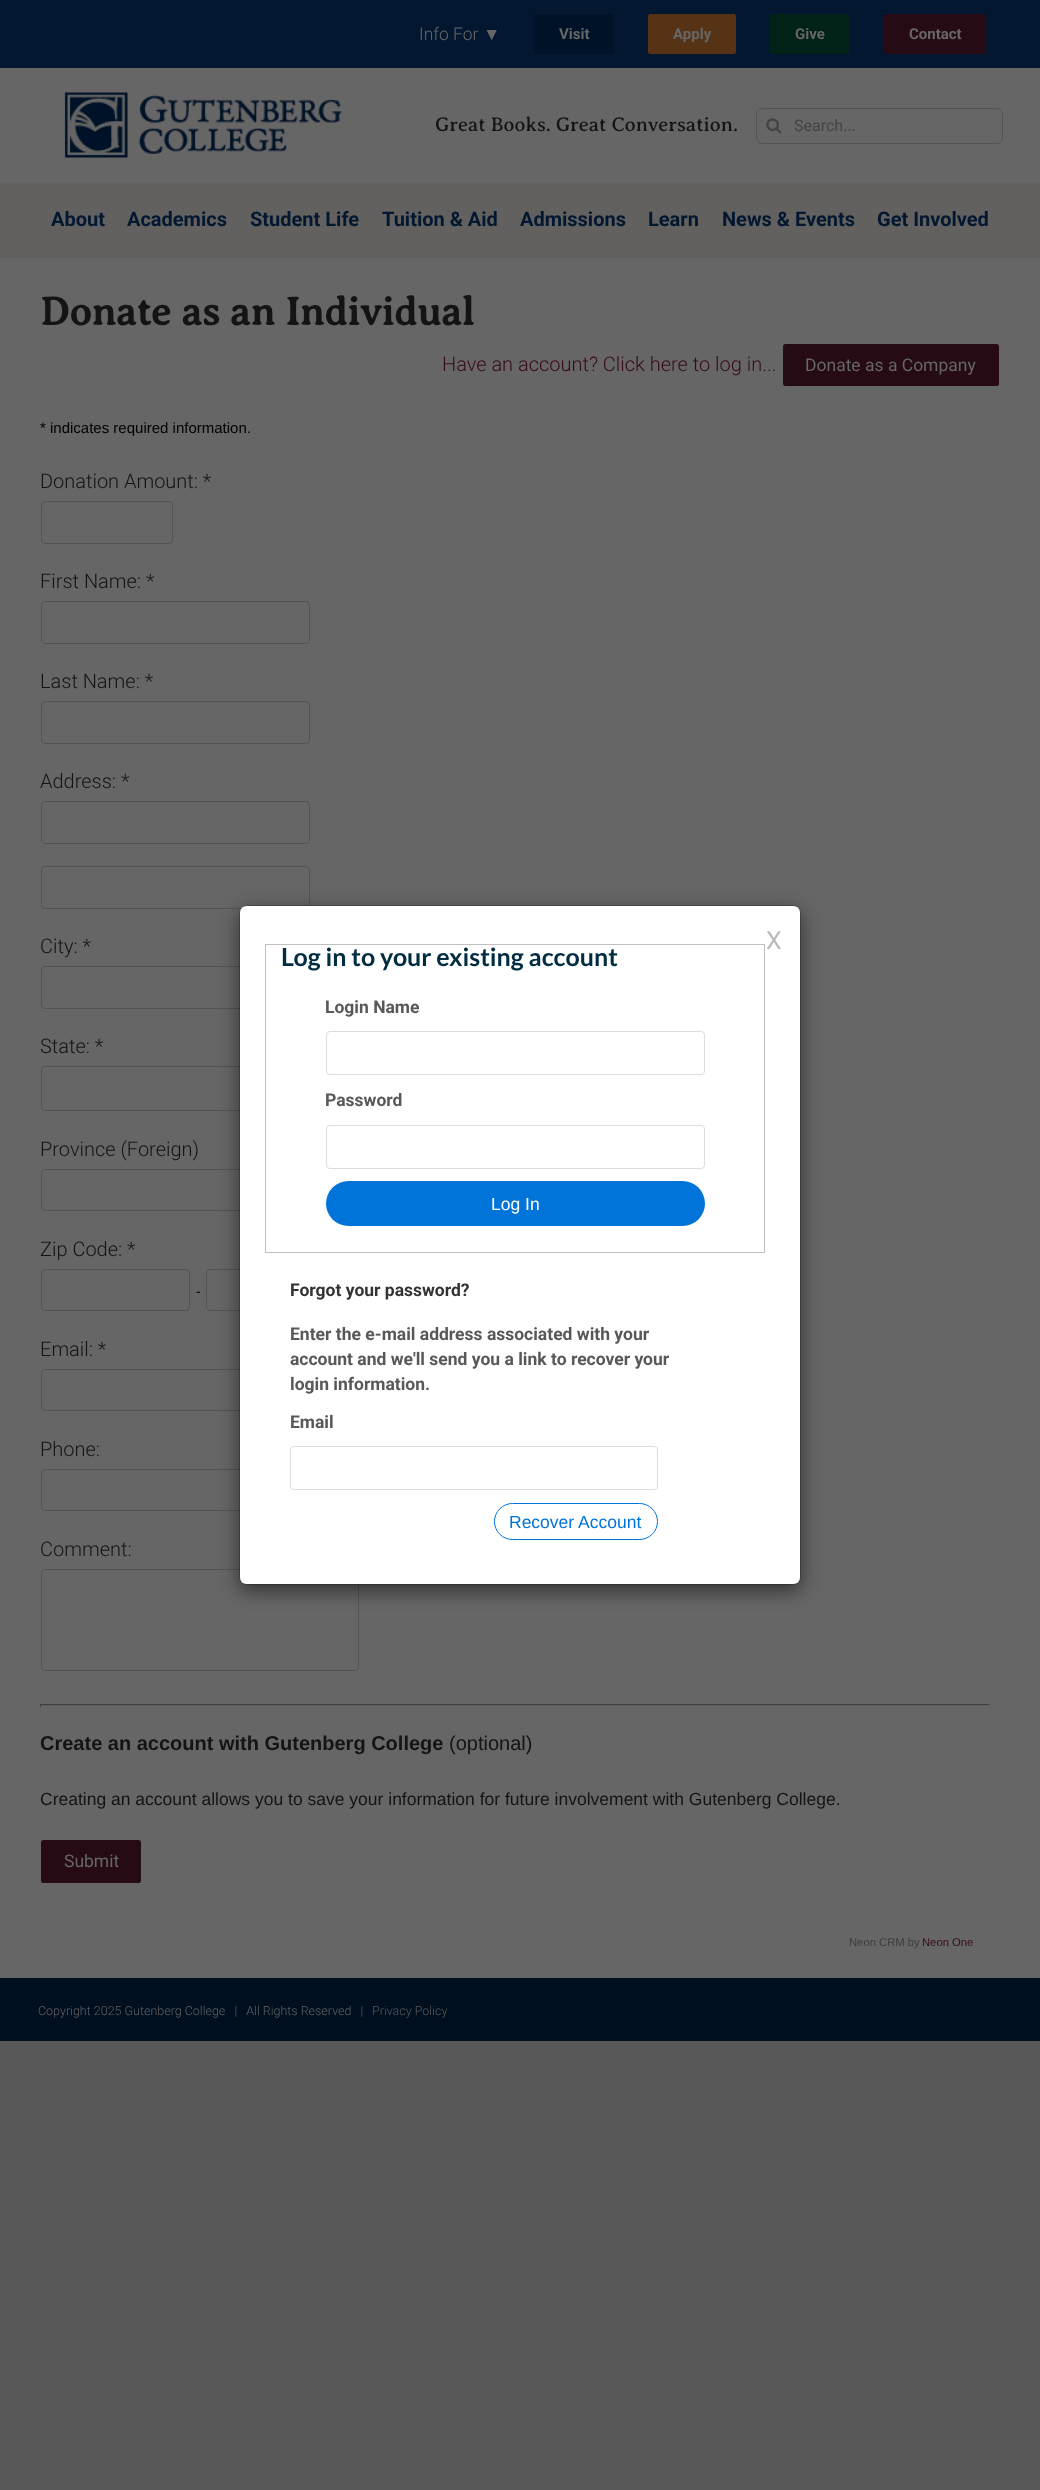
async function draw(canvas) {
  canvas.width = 1040;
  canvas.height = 2490;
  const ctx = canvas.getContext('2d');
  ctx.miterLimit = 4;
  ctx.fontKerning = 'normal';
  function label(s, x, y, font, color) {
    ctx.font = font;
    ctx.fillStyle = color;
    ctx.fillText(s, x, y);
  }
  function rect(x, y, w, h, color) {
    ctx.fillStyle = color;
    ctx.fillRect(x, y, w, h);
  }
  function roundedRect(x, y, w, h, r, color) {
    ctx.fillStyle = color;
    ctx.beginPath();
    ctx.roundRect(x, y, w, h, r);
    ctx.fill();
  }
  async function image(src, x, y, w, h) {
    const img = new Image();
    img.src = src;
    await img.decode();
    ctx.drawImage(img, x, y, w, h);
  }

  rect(0, 0, 1040, 2490, '#595858');
  rect(0, 68, 1040, 1910, '#666');
  rect(0, 0, 1040, 68, '#031830');
  label('Info For', 419, 40, '300 17.5px Roboto', '#666');
  label('▼', 483, 40, '17.5px Liberation Sans', '#666');
  roundedRect(534, 14, 80, 40, 2.5, '#001227');
  label('Visit', 559, 39, 'bold 15px Roboto', '#666');
  roundedRect(648, 14, 88, 40, 2.5, '#563315');
  label('Apply', 673, 39, 'bold 15px Roboto', '#666');
  roundedRect(770, 14, 80, 40, 2.5, '#012217');
  label('Give', 795, 39, 'bold 15px Roboto', '#666');
  roundedRect(884, 14, 102, 40, 2.5, '#260b14');
  label('Contact', 909, 39, 'bold 15px Roboto', '#666');
  await image('assets/img1.png', 64, 92, 278, 66);
  label('Great Books. Great Conversation.', 435, 131, '20px Averia Serif Libre', '#141414');
  ctx.beginPath();
  ctx.roundRect(756.5, 108.5, 246, 35, 5.5);
  ctx.strokeStyle = '#545454';
  ctx.stroke();
  await image('assets/img2.png', 766, 118, 16, 16);
  label('Search...', 794, 131, '16px Roboto', '#444');
  rect(0, 183, 1040, 75, '#626160');
  label('About', 51, 226, 'bold 20px Roboto', '#031830');
  label('Academics', 127, 226, 'bold 20px Roboto', '#031830');
  label('Student Life', 250, 226, 'bold 20px Roboto', '#031830');
  label('Tuition & Aid', 382, 226, 'bold 20px Roboto', '#031830');
  label('Admissions', 520, 226, 'bold 20px Roboto', '#031830');
  label('Learn', 648, 226, 'bold 20px Roboto', '#031830');
  label('News & Events', 722, 226, 'bold 20px Roboto', '#031830');
  label('Get Involved', 877, 226, 'bold 20px Roboto', '#031830');
  label('Donate as an Individual', 40, 325, 'bold 40px Averia Serif Libre', '#141414');
  label('Have an account? Click here to log in...', 442, 371, '300 20px Roboto', '#390b1a');
  roundedRect(783, 344, 216, 42, 2.5, '#260b14');
  label('Donate as a Company', 805, 371, '17.5px Roboto', '#666');
  label('* indicates required information.', 40, 433, '15px Liberation Sans', '#000');
  label('Donation Amount: *', 40, 488, '300 20px Roboto', '#141414');
  ctx.beginPath();
  ctx.roundRect(41.5, 501.5, 131, 42, 3.5);
  ctx.stroke();
  label('First Name: *', 40, 588, '300 20px Roboto', '#141414');
  ctx.beginPath();
  ctx.roundRect(41.5, 601.5, 268, 42, 3.5);
  ctx.stroke();
  label('Last Name: *', 40, 688, '300 20px Roboto', '#141414');
  ctx.beginPath();
  ctx.roundRect(41.5, 701.5, 268, 42, 3.5);
  ctx.stroke();
  label('Address: *', 40, 788, '300 20px Roboto', '#141414');
  ctx.beginPath();
  ctx.roundRect(41.5, 801.5, 268, 42, 3.5);
  ctx.stroke();
  ctx.beginPath();
  ctx.roundRect(41.5, 866.5, 268, 42, 3.5);
  ctx.stroke();
  label('City: *', 40, 953, '300 20px Roboto', '#141414');
  ctx.beginPath();
  ctx.roundRect(41.5, 966.5, 268, 42, 3.5);
  ctx.stroke();
  label('State: *', 40, 1053, '300 20px Roboto', '#141414');
  ctx.beginPath();
  ctx.roundRect(41.5, 1066.5, 312, 44, 3.5);
  ctx.stroke();
  label('Province (Foreign)', 40, 1156, '300 20px Roboto', '#141414');
  ctx.beginPath();
  ctx.roundRect(41.5, 1169.5, 268, 41, 3.5);
  ctx.stroke();
  label('Zip Code: *', 40, 1256, '300 20px Roboto', '#141414');
  ctx.beginPath();
  ctx.roundRect(41.5, 1269.5, 148, 41, 3.5);
  ctx.stroke();
  label('-', 196, 1296, '14px Liberation Sans', '#000');
  ctx.beginPath();
  ctx.roundRect(206.5, 1269.5, 93, 41, 3.5);
  ctx.stroke();
  label('Email: *', 40, 1356, '300 20px Roboto', '#141414');
  ctx.beginPath();
  ctx.roundRect(41.5, 1369.5, 268, 41, 3.5);
  ctx.stroke();
  label('Phone:', 40, 1456, '300 20px Roboto', '#141414');
  ctx.beginPath();
  ctx.roundRect(41.5, 1469.5, 268, 41, 3.5);
  ctx.stroke();
  label('Comment:', 40, 1556, '300 20px Roboto', '#141414');
  ctx.beginPath();
  ctx.roundRect(41.5, 1569.5, 317, 101, 3.5);
  ctx.stroke();
  rect(40, 1704, 950, 1, '#404040');
  rect(989, 1704, 1, 3, '#5f5f5f');
  rect(40, 1705, 950, 1, '#5f5f5f');
  rect(40, 1704, 1, 3, '#404040');
  label('Create an account with Gutenberg College', 40, 1750, 'bold 20px Liberation Sans', '#141414');
  label('(optional)', 449, 1750, '20px Liberation Sans', '#141414');
  label('Creating an account allows you to save your information for future involvement with Gutenberg College.', 40, 1805, '17.5px Liberation Sans', '#141414');
  roundedRect(41, 1840, 100, 43, 2.5, '#260b14');
  label('Submit', 64, 1867, '17.5px Roboto', '#666');
  label('Neon CRM by', 849, 1946, '11.25px Liberation Sans', '#3d3d3d');
  label('Neon One', 922, 1946, '11.25px Liberation Sans', '#390b1a');
  rect(0, 1978, 1040, 63, '#000f20');
  label('Copyright 2025 Gutenberg College   |   All Rights Reserved   |', 38, 2015, '300 12.5px Roboto', '#626160');
  label('Privacy Policy', 372, 2015, '300 12.5px Roboto', '#595858');
  ctx.fillStyle = '#00000080';
  ctx.filter = 'blur(9.5px)';
  ctx.beginPath();
  ctx.roundRect(239, 911, 562, 680, 8);
  ctx.fill();
  ctx.filter = 'none';
  roundedRect(240, 906, 560, 678, 6, '#fff');
  ctx.beginPath();
  ctx.roundRect(239.5, 905.5, 561, 679, 7.5);
  ctx.strokeStyle = '#00000033';
  ctx.stroke();
  label('X', 766, 949, '25px Roboto', '#bbb');
  ctx.strokeStyle = '#c0c0c0';
  ctx.strokeRect(265.5, 944.5, 499, 308);
  label('Log in to your existing account', 281, 966, 'bold 25px Lato', '#002d41');
  label('Login Name', 325, 1013, 'bold 17.5px Roboto', '#595858');
  ctx.beginPath();
  ctx.roundRect(326.5, 1031.5, 378, 43, 3.5);
  ctx.strokeStyle = '#ddd';
  ctx.stroke();
  label('Password', 325, 1106, 'bold 17.5px Roboto', '#595858');
  ctx.beginPath();
  ctx.roundRect(326.5, 1125.5, 378, 43, 3.5);
  ctx.stroke();
  roundedRect(326, 1181, 379, 45, 22.5, '#0074d9');
  label('Log In', 491, 1210, '17.5px Liberation Sans', '#fff');
  label('Forgot your password?', 290, 1296, 'bold 17.5px Roboto', '#333');
  label('Enter the e-mail address associated with your', 290, 1340, 'bold 17.5px Roboto', '#595858');
  label('account and we\'ll send you a link to recover your', 290, 1365, 'bold 17.5px Roboto', '#595858');
  label('login information.', 290, 1390, 'bold 17.5px Roboto', '#595858');
  label('Email', 290, 1428, 'bold 17.5px Roboto', '#595858');
  ctx.beginPath();
  ctx.roundRect(290.5, 1446.5, 367, 43, 3.5);
  ctx.stroke();
  ctx.beginPath();
  ctx.roundRect(494.5, 1503.5, 163, 36, 18);
  ctx.strokeStyle = '#0074d9';
  ctx.stroke();
  label('Recover Account', 509, 1528, '17.5px Liberation Sans', '#0074d9');
}

draw(document.querySelector('canvas'));
